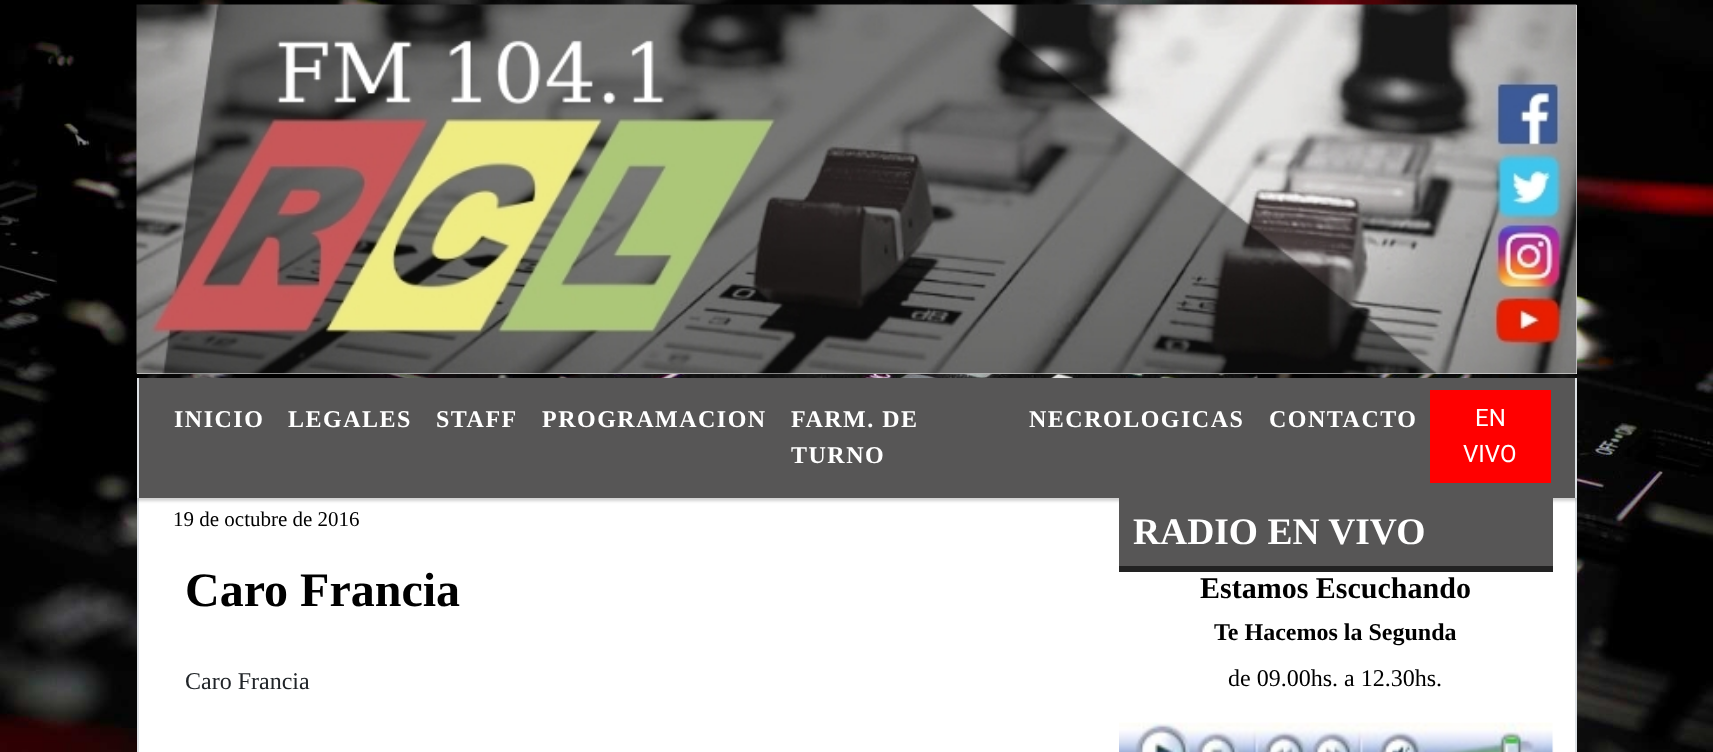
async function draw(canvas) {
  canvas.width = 1713;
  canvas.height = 752;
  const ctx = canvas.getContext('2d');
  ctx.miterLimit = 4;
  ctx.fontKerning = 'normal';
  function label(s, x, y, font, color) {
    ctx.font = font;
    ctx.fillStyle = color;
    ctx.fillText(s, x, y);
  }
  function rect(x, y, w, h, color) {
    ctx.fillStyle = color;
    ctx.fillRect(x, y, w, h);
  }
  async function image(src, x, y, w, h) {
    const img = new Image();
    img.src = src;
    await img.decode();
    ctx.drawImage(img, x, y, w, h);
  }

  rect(0, 0, 1713, 752, '#fff');
  await image('assets/img1.png', 0, 0, 1713, 752);
  rect(137, 5, 1440, 369, '#fff');
  await image('assets/img2.png', 136, 4, 1441, 370);
  rect(139, 498, 1436, 254, '#fff');
  rect(1575, 498, 2, 254, '#dee2e6');
  rect(137, 498, 2, 254, '#dee2e6');
  ctx.fillStyle = '#0000002e';
  ctx.filter = 'blur(1.5px)';
  ctx.beginPath();
  ctx.rect(137, 381, 1440, 120);
  ctx.fill();
  ctx.filter = 'none';
  rect(139, 378, 1436, 120, '#575656');
  rect(1575, 378, 2, 120, '#dee2e6');
  rect(137, 378, 2, 120, '#dee2e6');
  ctx.letterSpacing = '1.5px';
  label('INICIO', 174, 427, 'bold 24px Liberation Serif', '#fff');
  label('LEGALES', 288, 427, 'bold 24px Liberation Serif', '#fff');
  label('STAFF', 436, 427, 'bold 24px Liberation Serif', '#fff');
  label('PROGRAMACION', 542, 427, 'bold 24px Liberation Serif', '#fff');
  label('FARM. DE', 791, 427, 'bold 24px Liberation Serif', '#fff');
  label('TURNO', 791, 463, 'bold 24px Liberation Serif', '#fff');
  label('NECROLOGICAS', 1029, 427, 'bold 24px Liberation Serif', '#fff');
  label('CONTACTO', 1269, 427, 'bold 24px Liberation Serif', '#fff');
  rect(1430, 390, 121, 93, '#f00');
  ctx.letterSpacing = '0px';
  label('EN', 1475, 426, '24px Roboto', '#fff');
  label('VIVO', 1463, 462, '24px Roboto', '#fff');
  label('19 de octubre de 2016', 173, 526, '21px Liberation Serif', '#000');
  label('Caro Francia', 185, 606, 'bold 48px Liberation Serif', '#000');
  label('Caro Francia', 185, 689, '24px Liberation Serif', '#212529');
  rect(1119, 498, 434, 68, '#575656');
  rect(1119, 566, 434, 6, '#222');
  label('RADIO EN VIVO', 1133, 544, 'bold 37.5px Liberation Serif', '#fff');
  label('Estamos Escuchando', 1200, 598, 'bold 30px Liberation Serif', '#000');
  label('Te Hacemos la Segunda', 1214, 640, 'bold 24px Liberation Serif', '#000');
  label('de 09.00hs. a 12.30hs.', 1228, 686, '24px Liberation Serif', '#000');
  await image('assets/img3.png', 1119, 722, 435, 30);
}

draw(document.querySelector('canvas'));
